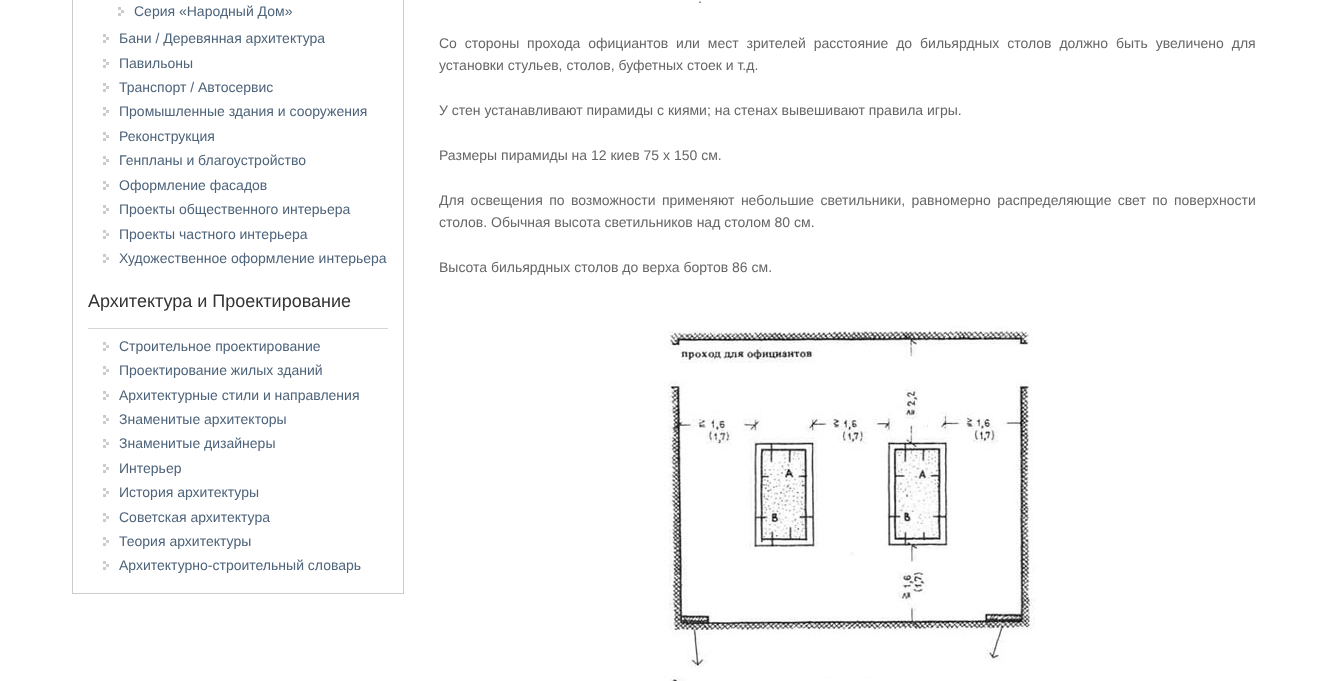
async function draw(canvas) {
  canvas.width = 1328;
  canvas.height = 681;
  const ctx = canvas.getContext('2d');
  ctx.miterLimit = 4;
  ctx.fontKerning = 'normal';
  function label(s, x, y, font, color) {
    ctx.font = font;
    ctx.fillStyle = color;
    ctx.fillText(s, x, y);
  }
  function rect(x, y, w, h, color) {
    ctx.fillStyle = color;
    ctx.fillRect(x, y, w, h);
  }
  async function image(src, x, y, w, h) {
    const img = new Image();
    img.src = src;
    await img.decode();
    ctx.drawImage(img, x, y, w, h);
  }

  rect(0, 0, 1328, 681, '#fff');
  ctx.strokeStyle = '#ccc';
  ctx.strokeRect(72.5, -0.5, 331, 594);
  await image('assets/img1.png', 118, 7, 6, 9);
  label('Серия «Народный Дом»', 134, 16, '14px Liberation Sans', '#4d637a');
  await image('assets/img1.png', 103, 34, 6, 9);
  label('Бани / Деревянная архитектура', 119, 43, '14px Liberation Sans', '#4d637a');
  await image('assets/img1.png', 103, 59, 6, 9);
  label('Павильоны', 119, 68, '14px Liberation Sans', '#4d637a');
  await image('assets/img1.png', 103, 83, 6, 9);
  label('Транспорт / Автосервис', 119, 92, '14px Liberation Sans', '#4d637a');
  await image('assets/img1.png', 103, 107, 6, 9);
  label('Промышленные здания и сооружения', 119, 116, '14px Liberation Sans', '#4d637a');
  await image('assets/img1.png', 103, 132, 6, 9);
  label('Реконструкция', 119, 141, '14px Liberation Sans', '#4d637a');
  await image('assets/img1.png', 103, 156, 6, 9);
  label('Генпланы и благоустройство', 119, 165, '14px Liberation Sans', '#4d637a');
  await image('assets/img1.png', 103, 181, 6, 9);
  label('Оформление фасадов', 119, 190, '14px Liberation Sans', '#4d637a');
  await image('assets/img1.png', 103, 205, 6, 9);
  label('Проекты общественного интерьера', 119, 214, '14px Liberation Sans', '#4d637a');
  await image('assets/img1.png', 103, 230, 6, 9);
  label('Проекты частного интерьера', 119, 239, '14px Liberation Sans', '#4d637a');
  await image('assets/img1.png', 103, 254, 6, 9);
  label('Художественное оформление интерьера', 119, 263, '14px Liberation Sans', '#4d637a');
  rect(88, 328, 300, 1, '#d3d7d9');
  label('Архитектура и Проектирование', 88, 307, '18px Liberation Sans', '#333');
  await image('assets/img1.png', 103, 342, 6, 9);
  label('Строительное проектирование', 119, 351, '14px Liberation Sans', '#4d637a');
  await image('assets/img1.png', 103, 366, 6, 9);
  label('Проектирование жилых зданий', 119, 375, '14px Liberation Sans', '#4d637a');
  await image('assets/img1.png', 103, 391, 6, 9);
  label('Архитектурные стили и направления', 119, 400, '14px Liberation Sans', '#4d637a');
  await image('assets/img1.png', 103, 415, 6, 9);
  label('Знаменитые архитекторы', 119, 424, '14px Liberation Sans', '#4d637a');
  await image('assets/img1.png', 103, 439, 6, 9);
  label('Знаменитые дизайнеры', 119, 448, '14px Liberation Sans', '#4d637a');
  await image('assets/img1.png', 103, 464, 6, 9);
  label('Интерьер', 119, 473, '14px Liberation Sans', '#4d637a');
  await image('assets/img1.png', 103, 488, 6, 9);
  label('История архитектуры', 119, 497, '14px Liberation Sans', '#4d637a');
  await image('assets/img1.png', 103, 513, 6, 9);
  label('Советская архитектура', 119, 522, '14px Liberation Sans', '#4d637a');
  await image('assets/img1.png', 103, 537, 6, 9);
  label('Теория архитектуры', 119, 546, '14px Liberation Sans', '#4d637a');
  await image('assets/img1.png', 103, 561, 6, 9);
  label('Архитектурно-строительный словарь', 119, 570, '14px Liberation Sans', '#4d637a');
  label('.', 698, 3, '14px Liberation Sans', '#666');
  ctx.wordSpacing = '4px';
  label('Со стороны прохода официантов или мест зрителей расстояние до бильярдных столов должно быть увеличено для', 439, 48, '14px Liberation Sans', '#666');
  ctx.wordSpacing = '0px';
  label('установки стульев, столов, буфетных стоек и т.д.', 439, 70, '14px Liberation Sans', '#666');
  label('У стен устанавливают пирамиды с киями; на стенах вывешивают правила игры.', 439, 115, '14px Liberation Sans', '#666');
  label('Размеры пирамиды на 12 киев 75 х 150 см.', 439, 160, '14px Liberation Sans', '#666');
  ctx.wordSpacing = '2.5px';
  label('Для освещения по возможности применяют небольшие светильники, равномерно распределяющие свет по поверхности', 439, 205, '14px Liberation Sans', '#666');
  ctx.wordSpacing = '0px';
  label('столов. Обычная высота светильников над столом 80 см.', 439, 227, '14px Liberation Sans', '#666');
  label('Высота бильярдных столов до верха бортов 86 см.', 439, 272, '14px Liberation Sans', '#666');
  await image('assets/img2.png', 664, 326, 372, 355);
}

draw(document.querySelector('canvas'));
